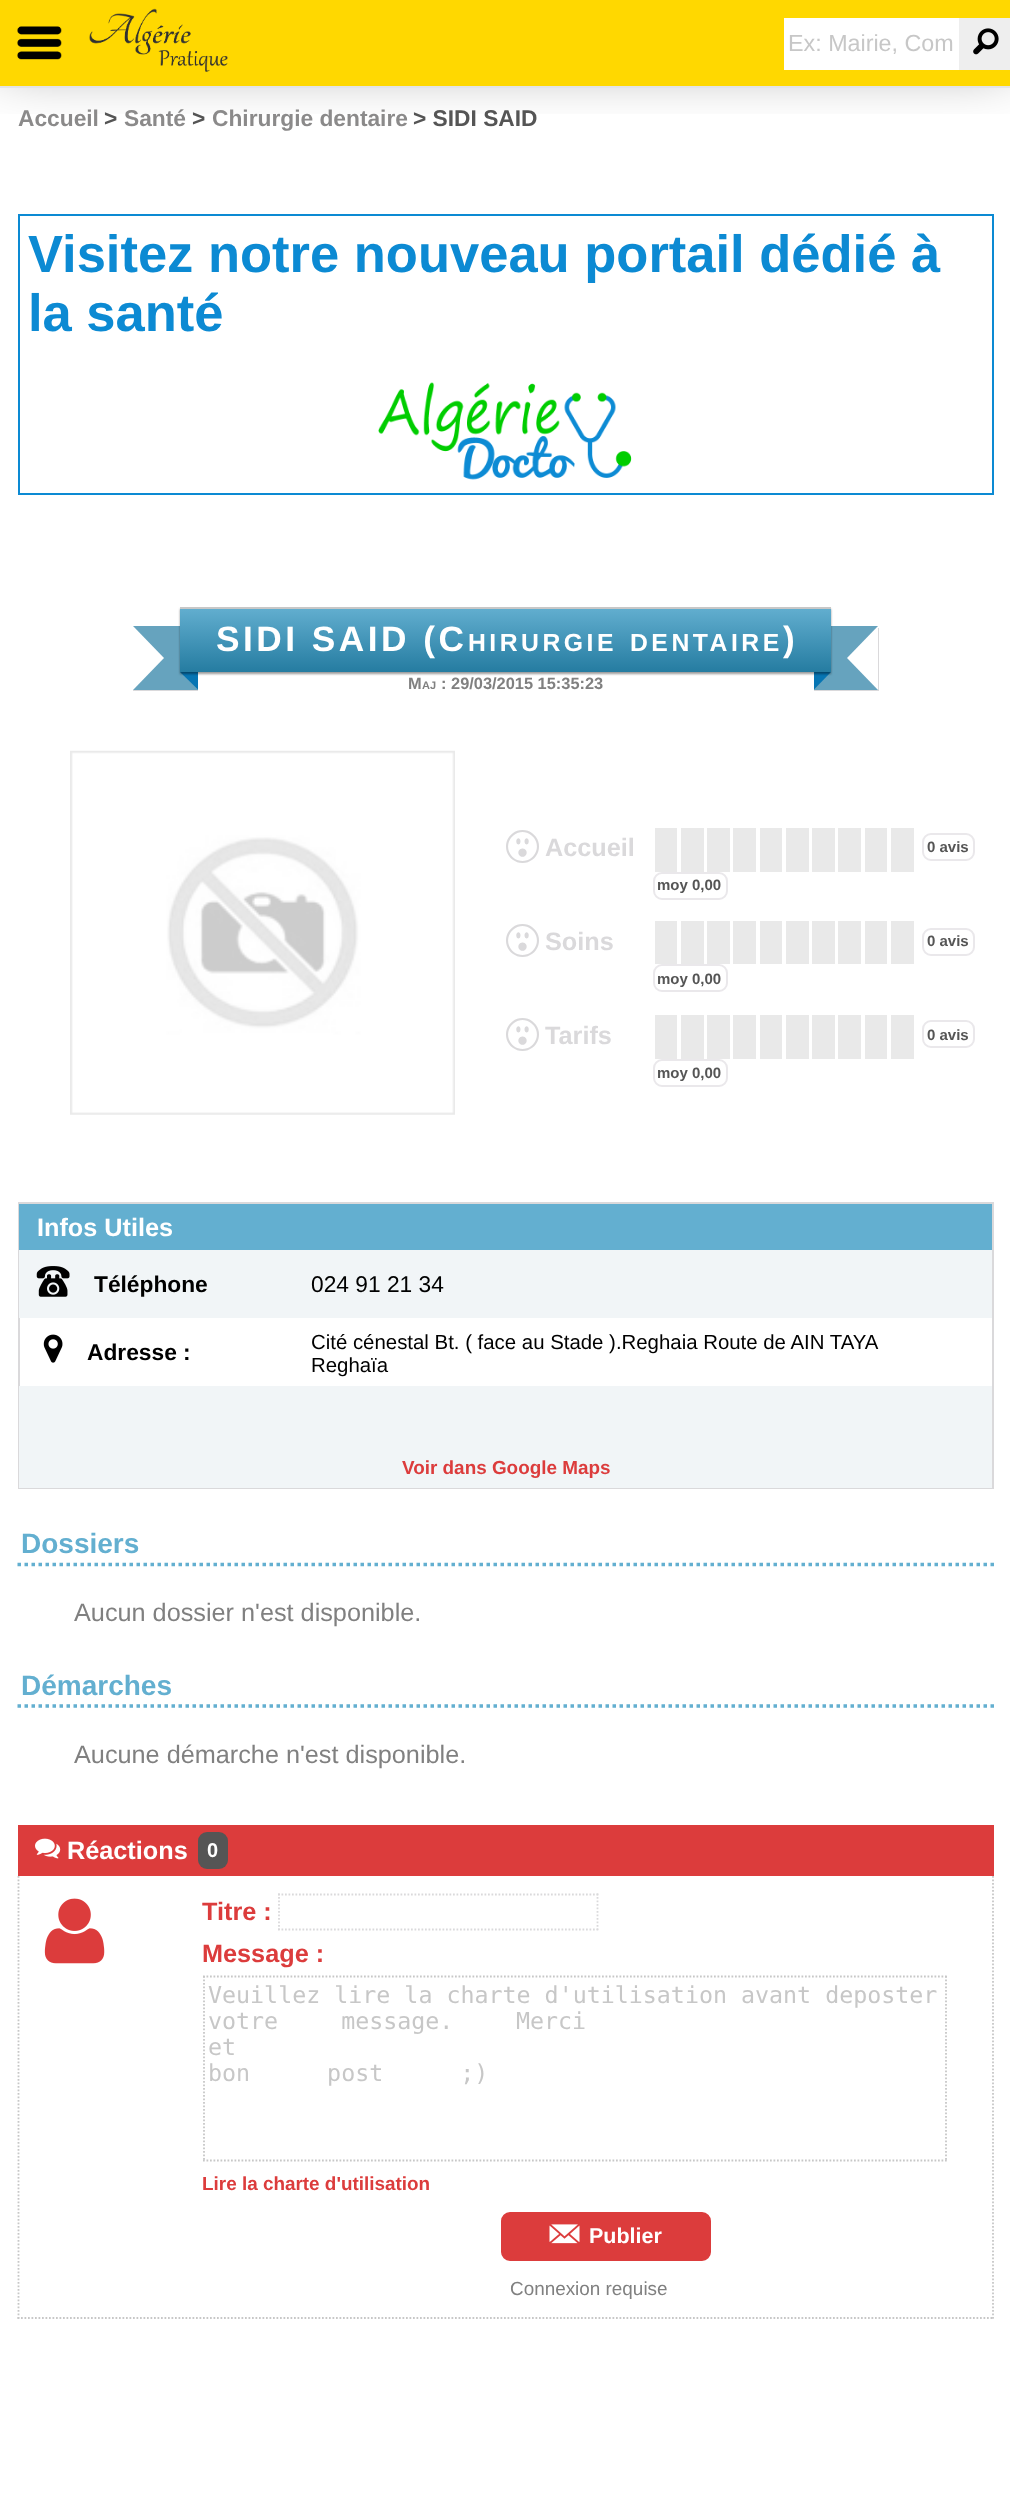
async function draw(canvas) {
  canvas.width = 1010;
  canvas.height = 2507;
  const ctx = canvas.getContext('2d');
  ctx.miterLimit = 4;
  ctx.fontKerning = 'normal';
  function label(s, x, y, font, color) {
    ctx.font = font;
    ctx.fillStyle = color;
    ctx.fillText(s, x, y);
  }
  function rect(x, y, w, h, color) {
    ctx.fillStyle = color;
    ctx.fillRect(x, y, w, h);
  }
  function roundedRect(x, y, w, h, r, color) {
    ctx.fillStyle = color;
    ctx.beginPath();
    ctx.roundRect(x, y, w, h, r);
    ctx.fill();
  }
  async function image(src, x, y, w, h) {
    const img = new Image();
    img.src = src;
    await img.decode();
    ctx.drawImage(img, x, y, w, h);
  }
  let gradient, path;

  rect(0, 0, 1010, 2507, '#fff');
  rect(0, 0, 1010, 86, '#ffd800');
  ctx.save();
  ctx.beginPath();
  ctx.rect(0, 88, 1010, 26);
  ctx.clip();
  ctx.fillStyle = '#00000080';
  ctx.filter = 'blur(30.5px)';
  ctx.beginPath();
  ctx.rect(0, -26, 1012, 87);
  ctx.fill();
  ctx.filter = 'none';
  ctx.restore();
  rect(0, 86, 1010, 2, '#e4e4e4');
  await image('assets/img1.png', 17, 26, 45, 34);
  await image('assets/img2.png', 89, 8, 139, 64);
  rect(784, 18, 175, 52, '#fff');
  label('Ex: Mairie, Com', 788, 51, '23.3px Liberation Sans', '#c7c7c7');
  rect(959, 18, 51, 52, '#eee');
  await image('assets/img3.png', 973, 28, 26, 27);
  label('Accueil', 18, 126, 'bold 22.75px Liberation Sans', '#8b8a8a');
  label('>', 104, 126, 'bold 22.75px Liberation Sans', '#555');
  label('Santé', 124, 126, 'bold 22.75px Liberation Sans', '#8b8a8a');
  label('>', 192, 126, 'bold 22.75px Liberation Sans', '#555');
  label('Chirurgie dentaire', 212, 126, 'bold 22.75px Liberation Sans', '#8b8a8a');
  label('> SIDI SAID', 413, 126, 'bold 22.75px Liberation Sans', '#555');
  ctx.strokeStyle = '#0c8ad3';
  ctx.lineWidth = 2;
  ctx.strokeRect(19, 215, 974, 279);
  label('Visitez notre nouveau portail dédié à', 28, 272, 'bold 52.5px Liberation Sans', '#0c8ad3');
  label('la santé', 28, 331, 'bold 52.5px Liberation Sans', '#0c8ad3');
  await image('assets/img4.png', 378, 382, 254, 98);
  ctx.fillStyle = '#66a3be';
  path = new Path2D('M133 626H198L172 658H164Z');
  ctx.fill(path);
  rect(172, 627, 26, 63, '#66a3be');
  path = new Path2D('M198 690H133L164 658H172Z');
  ctx.fill(path);
  ctx.fillStyle = '#0675b3';
  path = new Path2D('M180 672H198V689.5Z');
  ctx.fill(path);
  ctx.fillStyle = '#dad9db';
  path = new Path2D('M814 690V691H879V628H878V690Z');
  ctx.fill(path);
  ctx.fillStyle = '#66a3be';
  path = new Path2D('M878 690H814L840 658H847Z');
  ctx.fill(path);
  path = new Path2D('M814 626H878L847 658H840Z');
  ctx.fill(path);
  rect(814, 627, 26, 63, '#66a3be');
  ctx.fillStyle = '#0675b3';
  path = new Path2D('M814 672H831L814 689.5Z');
  ctx.fill(path);
  ctx.fillStyle = '#00000066';
  ctx.filter = 'blur(1px)';
  ctx.beginPath();
  ctx.rect(180, 609, 651, 65);
  ctx.fill();
  ctx.filter = 'none';
  gradient = ctx.createLinearGradient(506, 607, 506, 672);
  gradient.addColorStop(0, '#63afd0');
  gradient.addColorStop(1, '#257ca1');
  ctx.fillStyle = gradient;
  ctx.fillRect(180, 609, 651, 63);
  rect(180, 607, 651, 2, '#c7c7c7');
  ctx.fillStyle = '#dad9db';
  path = new Path2D('M133 690V691H198V628V690Z');
  ctx.fill(path);
  ctx.letterSpacing = '3.5px';
  label('SIDI SAID (C', 216, 651, 'bold 35.25px Liberation Sans', '#fff');
  label('HIRURGIE', 468, 651, 'bold 24.75px Liberation Sans', '#fff');
  label('DENTAIRE', 630, 651, 'bold 24.75px Liberation Sans', '#fff');
  label(')', 783, 651, 'bold 35.25px Liberation Sans', '#fff');
  ctx.letterSpacing = '0px';
  label('M', 408, 689, 'bold 16.4px Liberation Sans', '#808080');
  label('AJ', 422, 689, 'bold 11px Liberation Sans', '#808080');
  label(': 29/03/2015 15:35:23', 441, 689, 'bold 16.4px Liberation Sans', '#808080');
  await image('assets/img5.png', 70, 750, 385, 365);
  label('0', 506, 863, '33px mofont', '#dad9db');
  label('Accueil', 545, 856, 'bold 25.25px Liberation Sans', '#dad9db');
  rect(655, 828, 22, 44, '#e9e9e9');
  rect(681, 828, 23, 44, '#e9e9e9');
  rect(707, 828, 23, 44, '#e9e9e9');
  rect(733, 828, 23, 44, '#e9e9e9');
  rect(760, 828, 22, 44, '#e9e9e9');
  rect(786, 828, 23, 44, '#e9e9e9');
  rect(812, 828, 23, 44, '#e9e9e9');
  rect(838, 828, 23, 44, '#e9e9e9');
  rect(865, 828, 22, 44, '#e9e9e9');
  rect(891, 828, 23, 44, '#e9e9e9');
  ctx.beginPath();
  ctx.roundRect(923, 834, 51, 26, 8);
  ctx.strokeStyle = '#eae8eb';
  ctx.stroke();
  label('0 avis', 927, 852, 'bold 15px Liberation Sans', '#555');
  ctx.beginPath();
  ctx.roundRect(654, 873, 73, 26, 8);
  ctx.stroke();
  label('moy 0,00', 657, 890, 'bold 15px Liberation Sans', '#555');
  label('0', 506, 957, '33px mofont', '#dad9db');
  label('Soins', 545, 950, 'bold 25.25px Liberation Sans', '#dad9db');
  rect(655, 921, 22, 43, '#e9e9e9');
  rect(681, 921, 23, 43, '#e9e9e9');
  rect(707, 921, 23, 43, '#e9e9e9');
  rect(733, 921, 23, 43, '#e9e9e9');
  rect(760, 921, 22, 43, '#e9e9e9');
  rect(786, 921, 23, 43, '#e9e9e9');
  rect(812, 921, 23, 43, '#e9e9e9');
  rect(838, 921, 23, 43, '#e9e9e9');
  rect(865, 921, 22, 43, '#e9e9e9');
  rect(891, 921, 23, 43, '#e9e9e9');
  ctx.beginPath();
  ctx.roundRect(923, 929, 51, 26, 8);
  ctx.stroke();
  label('0 avis', 927, 946, 'bold 15px Liberation Sans', '#555');
  ctx.beginPath();
  ctx.roundRect(654, 965, 73, 26, 8);
  ctx.stroke();
  label('moy 0,00', 657, 984, 'bold 15px Liberation Sans', '#555');
  label('0', 506, 1051, '33px mofont', '#dad9db');
  label('Tarifs', 545, 1044, 'bold 25.25px Liberation Sans', '#dad9db');
  rect(655, 1015, 22, 44, '#e9e9e9');
  rect(681, 1015, 23, 44, '#e9e9e9');
  rect(707, 1015, 23, 44, '#e9e9e9');
  rect(733, 1015, 23, 44, '#e9e9e9');
  rect(760, 1015, 22, 44, '#e9e9e9');
  rect(786, 1015, 23, 44, '#e9e9e9');
  rect(812, 1015, 23, 44, '#e9e9e9');
  rect(838, 1015, 23, 44, '#e9e9e9');
  rect(865, 1015, 22, 44, '#e9e9e9');
  rect(891, 1015, 23, 44, '#e9e9e9');
  ctx.beginPath();
  ctx.roundRect(923, 1021, 51, 26, 8);
  ctx.stroke();
  label('0 avis', 927, 1040, 'bold 15px Liberation Sans', '#555');
  ctx.beginPath();
  ctx.roundRect(654, 1060, 73, 26, 8);
  ctx.stroke();
  label('moy 0,00', 657, 1078, 'bold 15px Liberation Sans', '#555');
  ctx.strokeStyle = '#dad9db';
  ctx.strokeRect(19, 1203, 974, 285);
  rect(19, 1204, 973, 46, '#63afd0');
  label('Infos Utiles', 37, 1236, 'bold 25.25px Liberation Sans', '#fff');
  rect(19, 1250, 973, 68, '#f1f5f7');
  await image('assets/img6.png', 36, 1266, 34, 31);
  label('Téléphone', 94, 1292, 'bold 22.75px Liberation Sans', '#000');
  label('024 91 21 34', 311, 1292, '22.75px Liberation Sans', '#000');
  await image('assets/img7.png', 43, 1334, 20, 29);
  label('Adresse :', 87, 1360, 'bold 22.75px Liberation Sans', '#000');
  label('Cité cénestal Bt. ( face au Stade ).Reghaia Route de AIN TAYA', 311, 1349, '20.4px Liberation Sans', '#000');
  label('Reghaïa', 311, 1372, '20.4px Liberation Sans', '#000');
  rect(19, 1386, 973, 102, '#f1f5f7');
  label('Voir dans Google Maps', 402, 1474, 'bold 18.9px Liberation Sans', '#dc3c3c');
  path = new Path2D('M17.5 1564.5H994');
  ctx.strokeStyle = '#63afd0';
  ctx.lineWidth = 3.5;
  ctx.setLineDash([3.5, 3.5]);
  ctx.stroke(path);
  label('Dossiers', 21, 1553, 'bold 28px Liberation Sans', '#63afd0');
  label('Aucun dossier n\'est disponible.', 74, 1621, '25.25px Liberation Sans', '#808080');
  path = new Path2D('M17.5 1706H994');
  ctx.stroke(path);
  label('Démarches', 21, 1695, 'bold 28px Liberation Sans', '#63afd0');
  label('Aucune démarche n\'est disponible.', 74, 1763, '25.25px Liberation Sans', '#808080');
  rect(18, 1825, 976, 51, '#dc3c3c');
  await image('assets/img8.png', 35, 1838, 26, 21);
  label('Réactions', 67, 1859, 'bold 25.25px Liberation Sans', '#fff');
  roundedRect(198, 1832, 30, 37, 9, '#555');
  label('0', 207, 1857, 'bold 20px Liberation Sans', '#fff');
  path = new Path2D('M993 1876V2319');
  ctx.strokeStyle = '#c7c7c7';
  ctx.lineWidth = 1.8;
  ctx.setLineDash([1.75, 1.75]);
  ctx.stroke(path);
  path = new Path2D('M17.5 2318H994');
  ctx.stroke(path);
  path = new Path2D('M18.5 1876V2319');
  ctx.stroke(path);
  await image('assets/img9.png', 44, 1898, 61, 66);
  label('Titre :', 202, 1920, 'bold 25.25px Liberation Sans', '#dc3c3c');
  path = new Path2D('M278 1894.5H598.5');
  ctx.strokeStyle = '#dad9db';
  ctx.stroke(path);
  path = new Path2D('M597.5 1893.5V1930');
  ctx.stroke(path);
  path = new Path2D('M278 1929.5H598.5');
  ctx.stroke(path);
  path = new Path2D('M279 1893.5V1930');
  ctx.stroke(path);
  label('Message :', 202, 1962, 'bold 25.25px Liberation Sans', '#dc3c3c');
  path = new Path2D('M203 1976.5H947');
  ctx.strokeStyle = '#c7c7c7';
  ctx.stroke(path);
  path = new Path2D('M946 1976V2161');
  ctx.stroke(path);
  path = new Path2D('M203 2160.5H947');
  ctx.stroke(path);
  path = new Path2D('M204 1976V2161');
  ctx.stroke(path);
  label('Veuillez lire la charte d\'utilisation avant deposter', 208, 2003, '23.3px DejaVu Sans Mono', '#c7c7c7');
  ctx.wordSpacing = '49px';
  label('votre message.', 208, 2029, '23.3px DejaVu Sans Mono', '#c7c7c7');
  ctx.wordSpacing = '0px';
  label('Merci', 516, 2029, '23.3px DejaVu Sans Mono', '#c7c7c7');
  label('et', 208, 2055, '23.3px DejaVu Sans Mono', '#c7c7c7');
  ctx.wordSpacing = '63px';
  label('bon post ;)', 208, 2081, '23.3px DejaVu Sans Mono', '#c7c7c7');
  ctx.wordSpacing = '0px';
  label('Lire la charte d\'utilisation', 202, 2190, 'bold 18.9px Liberation Sans', '#dc3c3c');
  ctx.beginPath();
  ctx.roundRect(502, 2213, 208, 47, 8);
  ctx.fill();
  ctx.strokeStyle = '#dc3c3c';
  ctx.lineWidth = 2;
  ctx.setLineDash([]);
  ctx.stroke();
  await image('assets/img10.png', 549, 2224, 31, 20);
  label('Publier', 589, 2243, 'bold 21.5px Liberation Sans', '#fff');
  label('Connexion requise', 510, 2295, '18.9px Liberation Sans', '#808080');
}

draw(document.querySelector('canvas'));
